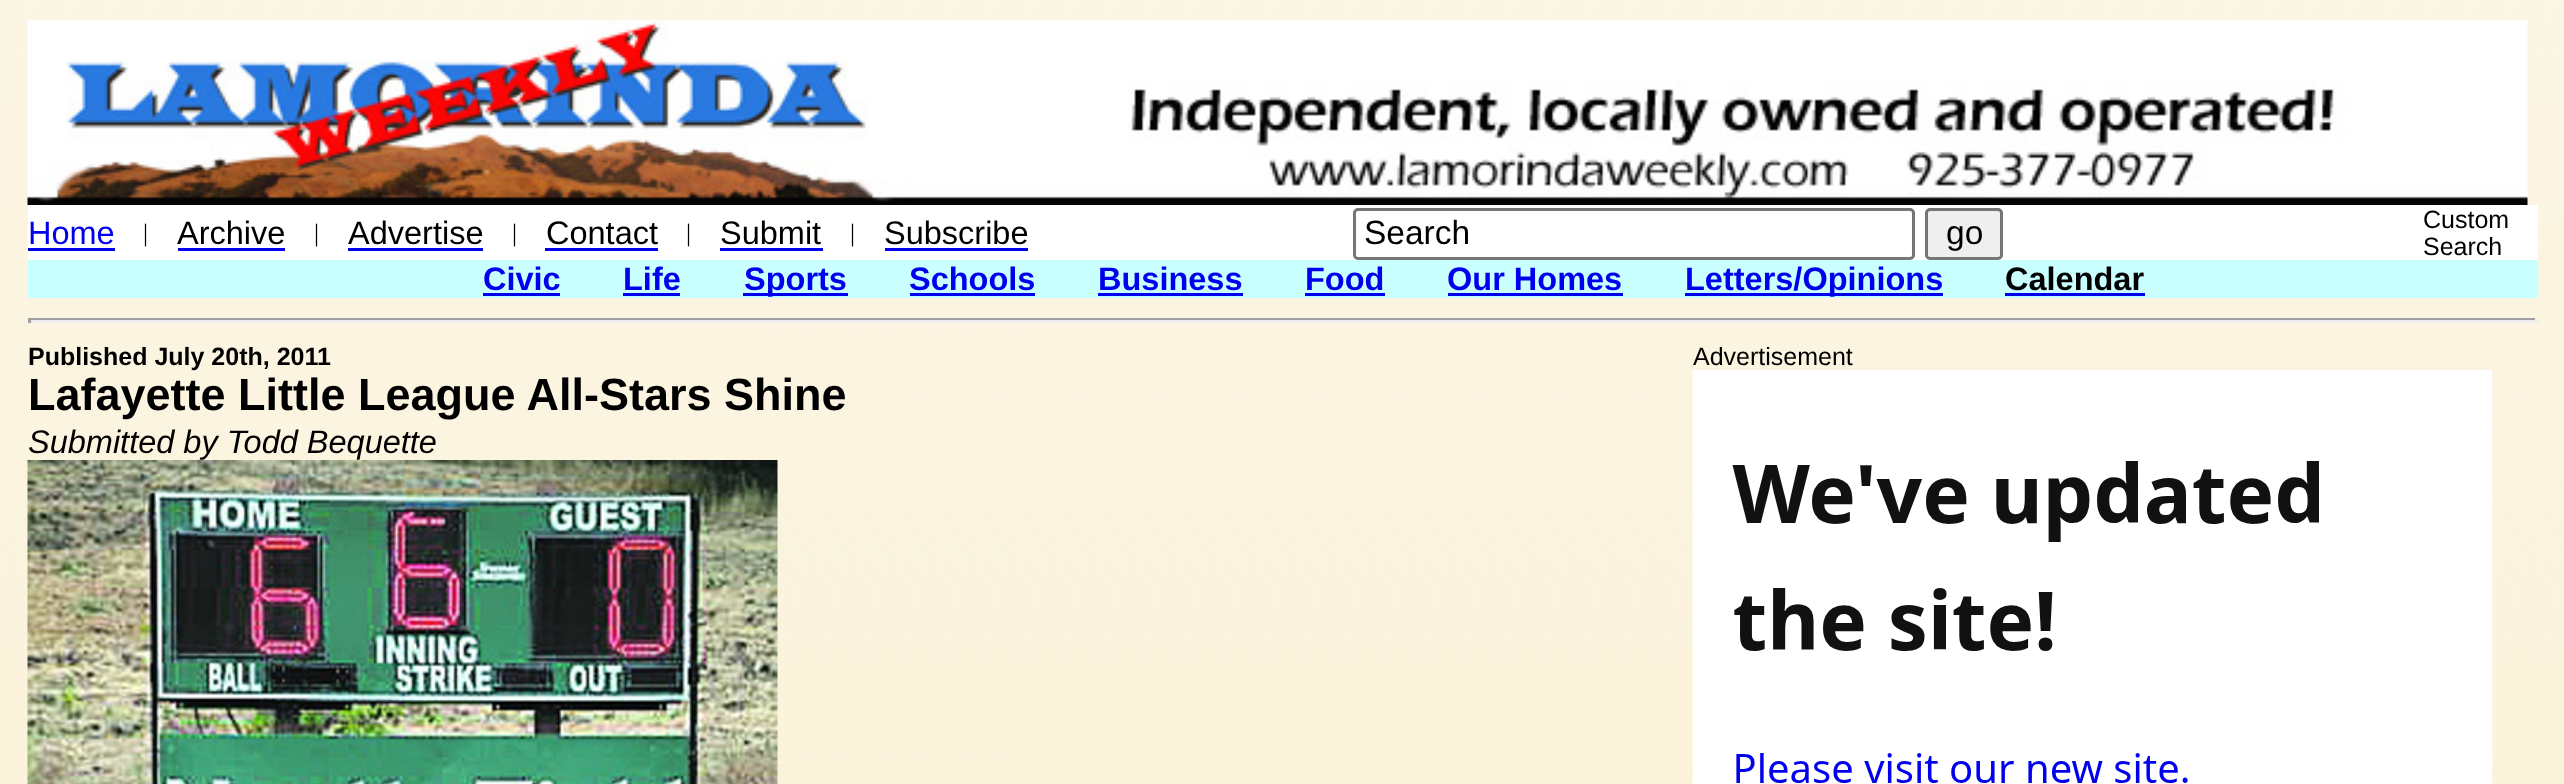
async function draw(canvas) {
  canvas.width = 2564;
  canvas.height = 784;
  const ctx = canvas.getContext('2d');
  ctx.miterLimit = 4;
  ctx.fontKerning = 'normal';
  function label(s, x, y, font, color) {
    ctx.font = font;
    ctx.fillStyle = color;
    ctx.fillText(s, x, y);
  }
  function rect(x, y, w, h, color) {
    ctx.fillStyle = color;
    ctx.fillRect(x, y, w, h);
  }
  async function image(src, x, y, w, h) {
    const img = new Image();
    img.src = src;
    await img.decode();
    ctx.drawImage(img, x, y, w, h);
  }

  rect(0, 0, 2564, 784, '#fff');
  await image('assets/img1.png', 0, 0, 2564, 784);
  await image('assets/img2.png', 27, 20, 2501, 185);
  rect(28, 260, 2510, 38, '#c9ffff');
  rect(28, 205, 2510, 55, '#fff');
  label('Home', 28, 244, '32.5px Liberation Sans', '#00e');
  rect(28, 248, 87, 3, '#00e');
  label('|', 143, 241, '25px Liberation Serif', '#000');
  label('Archive', 177, 244, '32.5px Liberation Sans', '#000');
  rect(178, 248, 107, 3, '#00e');
  label('|', 314, 241, '25px Liberation Serif', '#000');
  label('Advertise', 348, 244, '32.5px Liberation Sans', '#000');
  rect(348, 248, 135, 3, '#00e');
  label('|', 512, 241, '25px Liberation Serif', '#000');
  label('Contact', 546, 244, '32.5px Liberation Sans', '#000');
  rect(545, 248, 113, 3, '#00e');
  label('|', 686, 241, '25px Liberation Serif', '#000');
  label('Submit', 720, 244, '32.5px Liberation Sans', '#000');
  rect(720, 248, 103, 3, '#00e');
  label('|', 850, 241, '25px Liberation Serif', '#000');
  label('Subscribe', 884, 244, '32.5px Liberation Sans', '#000');
  rect(885, 248, 143, 3, '#00e');
  ctx.beginPath();
  ctx.roundRect(1354.5, 209.5, 559, 49, 3.5);
  ctx.strokeStyle = '#767676';
  ctx.lineWidth = 3;
  ctx.stroke();
  label('Search', 1364, 244, '33.5px Liberation Sans', '#000');
  ctx.fillStyle = '#efefef';
  ctx.beginPath();
  ctx.roundRect(1926.5, 209.5, 75, 49, 3.5);
  ctx.fill();
  ctx.stroke();
  label('go', 1946, 244, '33.5px Liberation Sans', '#000');
  label('Custom', 2423, 228, '25px Liberation Sans', '#000');
  label('Search', 2423, 255, '25px Liberation Sans', '#000');
  label('Civic', 483, 290, 'bold 32.5px Liberation Sans', '#00e');
  rect(483, 293, 77, 3, '#00e');
  label('Life', 623, 290, 'bold 32.5px Liberation Sans', '#00e');
  rect(623, 293, 57, 3, '#00e');
  rect(743, 293, 105, 3, '#00e');
  label('Sports', 744, 290, 'bold 32.5px Liberation Sans', '#00e');
  label('Schools', 909, 290, 'bold 32.5px Liberation Sans', '#00e');
  rect(910, 293, 125, 3, '#00e');
  label('Business', 1098, 290, 'bold 32.5px Liberation Sans', '#00e');
  rect(1098, 293, 145, 3, '#00e');
  label('Food', 1305, 290, 'bold 32.5px Liberation Sans', '#00e');
  rect(1305, 293, 80, 3, '#00e');
  label('Our Homes', 1447, 290, 'bold 32.5px Liberation Sans', '#00e');
  rect(1448, 293, 175, 3, '#00e');
  rect(1685, 293, 258, 3, '#00e');
  label('Letters/Opinions', 1685, 290, 'bold 32.5px Liberation Sans', '#00e');
  label('Calendar', 2005, 290, 'bold 32.5px Liberation Sans', '#000');
  rect(2005, 293, 140, 3, '#00e');
  rect(28, 318, 2510, 2, '#9f9f9f');
  rect(2535, 318, 3, 5, '#eee');
  rect(28, 320, 2510, 3, '#eee');
  rect(28, 318, 3, 5, '#9f9f9f');
  label('Published July 20th, 2011', 28, 365, 'bold 25px Liberation Sans', '#000');
  label('Lafayette Little League All-Stars Shine', 28, 410, 'bold 45px Liberation Sans', '#000');
  label('Submitted by Todd Bequette', 28, 453, 'italic 32.5px Liberation Sans', '#000');
  await image('assets/img3.png', 27, 460, 751, 324);
  label('Advertisement', 1693, 365, '25px Liberation Sans', '#000');
  await image('assets/img4.png', 1692, 370, 801, 414);
}

draw(document.querySelector('canvas'));
